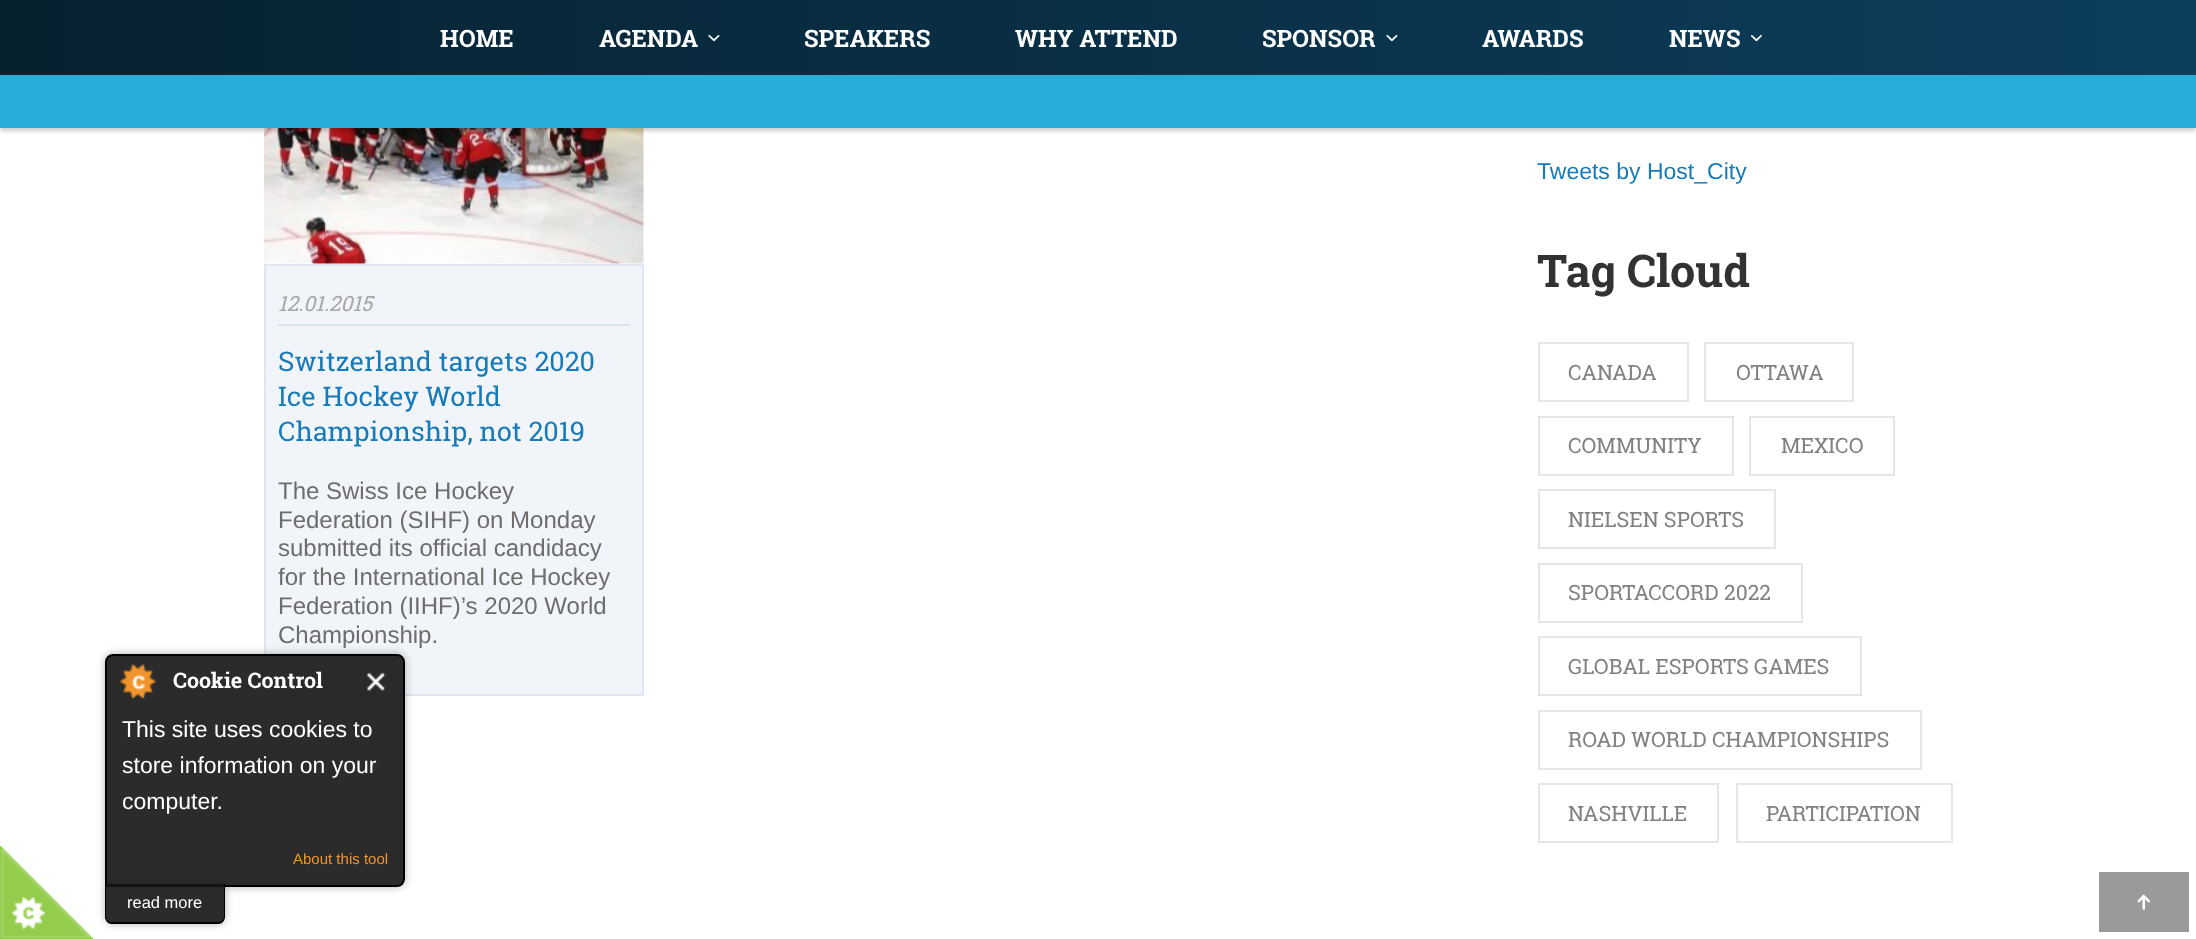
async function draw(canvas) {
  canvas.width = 2196;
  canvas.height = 939;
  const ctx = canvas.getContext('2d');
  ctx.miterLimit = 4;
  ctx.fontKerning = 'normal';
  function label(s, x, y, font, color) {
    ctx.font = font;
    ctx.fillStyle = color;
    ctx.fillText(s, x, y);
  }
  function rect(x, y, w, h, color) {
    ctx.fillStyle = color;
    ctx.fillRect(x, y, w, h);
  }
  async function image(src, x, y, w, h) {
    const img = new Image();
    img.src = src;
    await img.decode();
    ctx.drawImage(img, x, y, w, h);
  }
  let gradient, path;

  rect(0, 0, 2196, 939, '#fff');
  await image('assets/img1.png', 0, 846, 93, 93);
  ctx.fillStyle = '#f1f4f9';
  ctx.beginPath();
  ctx.rect(265, 265, 378, 430);
  ctx.fill();
  ctx.strokeStyle = '#dfe6f1';
  ctx.lineWidth = 2;
  ctx.stroke();
  ctx.save();
  path = new Path2D('M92 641H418V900H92ZM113 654H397C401.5 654 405 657.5 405 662V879C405 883.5 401.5 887 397 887H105V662C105 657.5 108.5 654 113 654Z');
  ctx.clip(path, 'evenodd');
  ctx.fillStyle = '#0000004d';
  ctx.filter = 'blur(4px)';
  ctx.beginPath();
  ctx.roundRect(105, 654, 300, 233, 8);
  ctx.fill();
  ctx.filter = 'none';
  ctx.restore();
  ctx.fillStyle = '#141414e6';
  ctx.beginPath();
  ctx.roundRect(106, 655, 298, 231, [7, 7, 7, 0]);
  ctx.fill();
  ctx.strokeStyle = '#000';
  ctx.stroke();
  await image('assets/img2.png', 120, 664, 37, 35);
  label('Cookie Control', 173, 688, 'bold 21.5px Roboto Slab', '#fff');
  await image('assets/img3.png', 367, 672, 19, 20);
  label('This site uses cookies to', 122, 737, '23px Liberation Sans', '#fff');
  label('store information on your', 122, 773, '23px Liberation Sans', '#fff');
  label('computer.', 122, 809, '23px Liberation Sans', '#fff');
  label('About this tool', 293, 864, '15px Liberation Sans', '#f0942b');
  ctx.save();
  path = new Path2D('M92 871H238V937H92ZM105 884H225V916C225 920.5 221.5 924 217 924H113C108.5 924 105 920.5 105 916Z');
  ctx.clip(path, 'evenodd');
  ctx.fillStyle = '#0000004d';
  ctx.filter = 'blur(4px)';
  ctx.beginPath();
  ctx.roundRect(105, 884, 120, 40, 8);
  ctx.fill();
  ctx.filter = 'none';
  ctx.restore();
  ctx.fillStyle = '#141414e6';
  ctx.beginPath();
  ctx.roundRect(105, 884, 120, 40, [0, 0, 8, 8]);
  ctx.fill();
  ctx.fillStyle = '#000';
  path = new Path2D('M105 884H225V916C225 921 222 924 218 924H112C108 924 105 921 105 916ZM106 884H224V916C224 920 221 922 218 922H112C109 922 106 920 106 916Z');
  ctx.fill(path, 'evenodd');
  label('read more', 127, 908, '16.5px Liberation Sans', '#fff');
  await image('assets/img7.png', 264, 128, 380, 136);
  ctx.fillStyle = '#0000001a';
  ctx.filter = 'blur(2px)';
  ctx.beginPath();
  ctx.rect(0, 3, 2196, 128);
  ctx.fill();
  ctx.filter = 'none';
  gradient = ctx.createLinearGradient(0, 64, 2196, 64);
  gradient.addColorStop(0, '#07212f');
  gradient.addColorStop(1, '#0c3e5d');
  ctx.fillStyle = gradient;
  ctx.fillRect(0, 0, 2196, 75);
  label('HOME', 440, 47, 'bold 24px Roboto Slab', '#fff');
  label('AGENDA', 599, 47, 'bold 24px Roboto Slab', '#fff');
  await image('assets/img4.png', 708, 35, 12, 7);
  label('SPEAKERS', 804, 47, 'bold 24px Roboto Slab', '#fff');
  label('WHY ATTEND', 1015, 47, 'bold 24px Roboto Slab', '#fff');
  label('SPONSOR', 1262, 47, 'bold 24px Roboto Slab', '#fff');
  await image('assets/img5.png', 1386, 35, 12, 7);
  label('AWARDS', 1482, 47, 'bold 24px Roboto Slab', '#fff');
  label('NEWS', 1669, 47, 'bold 24px Roboto Slab', '#fff');
  await image('assets/img6.png', 1750, 35, 12, 7);
  ctx.fillStyle = '#0000001a';
  ctx.filter = 'blur(2px)';
  ctx.beginPath();
  ctx.rect(0, 78, 2196, 53);
  ctx.fill();
  ctx.filter = 'none';
  rect(0, 75, 2196, 53, '#26aed8');
  rect(278, 324, 352, 2, '#dae6ea');
  label('12.01.2015', 278, 311, 'italic 21px Roboto Slab', '#a7a7a7');
  label('Switzerland targets 2020', 278, 371, '27px Roboto Slab', '#187bb9');
  label('Ice Hockey World', 278, 406, '27px Roboto Slab', '#187bb9');
  label('Championship, not 2019', 278, 441, '27px Roboto Slab', '#187bb9');
  label('The Swiss Ice Hockey', 278, 499, '24px Liberation Sans', '#6d6d6d');
  label('Federation (SIHF) on Monday', 278, 528, '24px Liberation Sans', '#6d6d6d');
  label('submitted its official candidacy', 278, 556, '24px Liberation Sans', '#6d6d6d');
  label('for the International Ice Hockey', 278, 585, '24px Liberation Sans', '#6d6d6d');
  label('Federation (IIHF)’s 2020 World', 278, 614, '24px Liberation Sans', '#6d6d6d');
  label('Championship.', 278, 643, '24px Liberation Sans', '#6d6d6d');
  label('Tweets by Host_City', 1537, 179, '23px Liberation Sans', '#187bb9');
  label('Tag Cloud', 1537, 287, 'bold 45px Roboto Slab', '#323232');
  ctx.strokeStyle = '#e6e6e6';
  ctx.strokeRect(1539, 343, 149, 58);
  label('CANADA', 1568, 380, '21px Roboto Slab', '#818181');
  ctx.strokeRect(1705, 343, 148, 58);
  label('OTTAWA', 1736, 380, '21px Roboto Slab', '#818181');
  ctx.strokeRect(1539, 417, 194, 58);
  label('COMMUNITY', 1568, 453, '21px Roboto Slab', '#818181');
  ctx.strokeRect(1750, 417, 144, 58);
  label('MEXICO', 1781, 453, '21px Roboto Slab', '#818181');
  ctx.strokeRect(1539, 490, 236, 58);
  label('NIELSEN SPORTS', 1568, 527, '21px Roboto Slab', '#818181');
  ctx.strokeRect(1539, 564, 263, 58);
  label('SPORTACCORD 2022', 1568, 600, '21px Roboto Slab', '#818181');
  ctx.strokeRect(1539, 637, 322, 58);
  label('GLOBAL ESPORTS GAMES', 1568, 674, '21px Roboto Slab', '#818181');
  ctx.strokeRect(1539, 711, 382, 58);
  label('ROAD WORLD CHAMPIONSHIPS', 1568, 747, '21px Roboto Slab', '#818181');
  ctx.strokeRect(1539, 784, 179, 58);
  label('NASHVILLE', 1568, 821, '21px Roboto Slab', '#818181');
  ctx.strokeRect(1737, 784, 215, 58);
  label('PARTICIPATION', 1766, 821, '21px Roboto Slab', '#818181');
  rect(2099, 872, 90, 60, '#9a9a9a');
  await image('assets/img8.png', 2137, 894, 13, 16);
}

draw(document.querySelector('canvas'));
